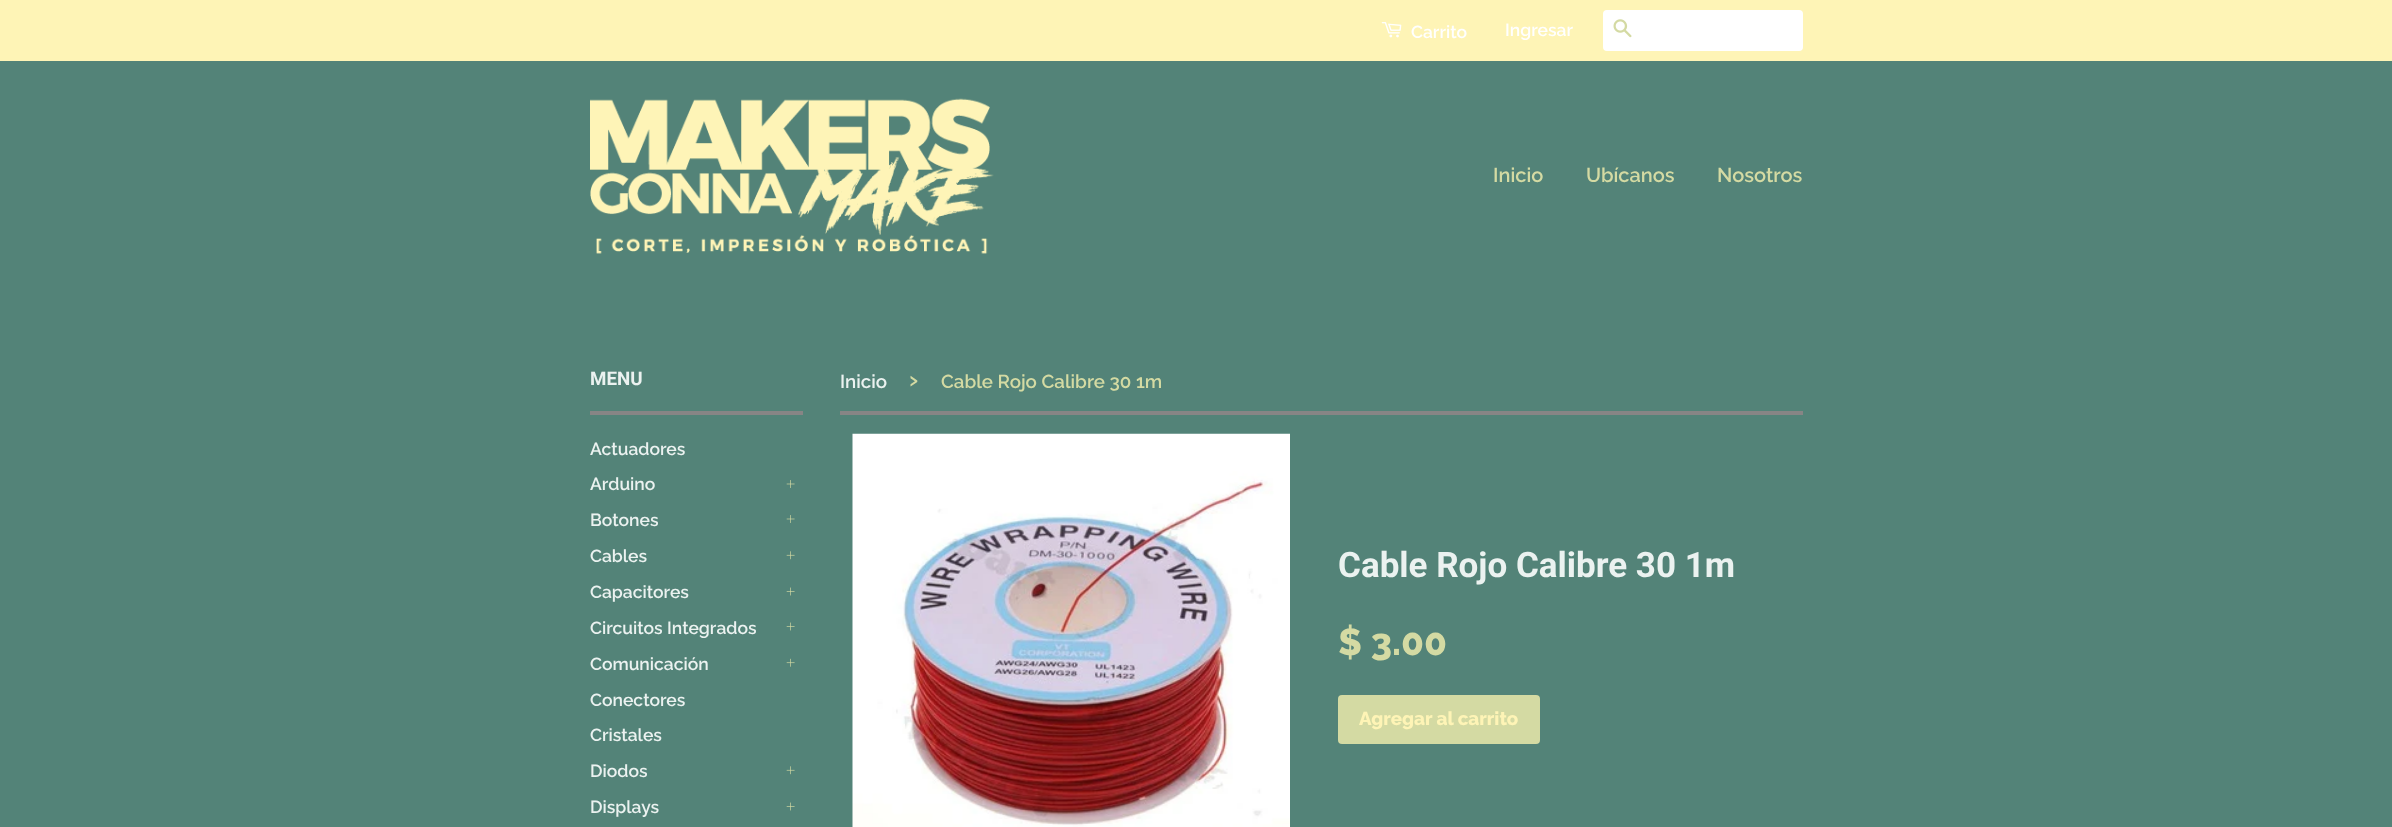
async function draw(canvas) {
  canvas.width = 2392;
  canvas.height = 827;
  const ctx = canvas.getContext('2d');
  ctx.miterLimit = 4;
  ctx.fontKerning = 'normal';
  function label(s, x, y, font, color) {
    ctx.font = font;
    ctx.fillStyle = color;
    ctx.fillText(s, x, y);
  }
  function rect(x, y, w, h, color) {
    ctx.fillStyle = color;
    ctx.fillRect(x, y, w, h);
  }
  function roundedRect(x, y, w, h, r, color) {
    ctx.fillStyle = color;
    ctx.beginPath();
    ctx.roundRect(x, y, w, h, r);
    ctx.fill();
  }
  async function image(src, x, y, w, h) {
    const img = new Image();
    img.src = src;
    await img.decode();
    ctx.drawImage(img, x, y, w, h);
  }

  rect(0, 0, 2392, 827, '#538378');
  rect(0, 0, 2392, 61, '#fef4b6');
  await image('assets/img1.png', 1381, 22, 21, 16);
  label('Carrito', 1411, 38, '600 17.5px Raleway', '#fff');
  label('Ingresar', 1505, 36, '600 17.5px Raleway', '#fff');
  roundedRect(1603, 10, 200, 41, 4, '#fff');
  await image('assets/img2.png', 1613, 19, 19, 19);
  await image('assets/img3.png', 590, 98, 404, 156);
  label('Inicio', 1493, 182, '600 20px Raleway', '#d4daa3');
  label('Ubícanos', 1586, 182, '600 20px Raleway', '#d4daa3');
  label('Nosotros', 1717, 182, '600 20px Raleway', '#d4daa3');
  rect(590, 411, 213, 4, '#878585');
  label('MENU', 590, 385, 'bold 18.75px Roboto', '#ebf2f0');
  label('Actuadores', 590, 455, '600 17.5px Raleway', '#ebf2f0');
  label('Arduino', 590, 490, '600 17.5px Raleway', '#ebf2f0');
  await image('assets/img4.png', 786, 480, 9, 8);
  label('Botones', 590, 526, '600 17.5px Raleway', '#ebf2f0');
  await image('assets/img4.png', 786, 515, 9, 8);
  label('Cables', 590, 562, '600 17.5px Raleway', '#ebf2f0');
  await image('assets/img5.png', 786, 551, 9, 9);
  label('Capacitores', 590, 598, '600 17.5px Raleway', '#ebf2f0');
  await image('assets/img6.png', 786, 587, 9, 9);
  label('Circuitos Integrados', 590, 634, '600 17.5px Raleway', '#ebf2f0');
  await image('assets/img6.png', 786, 622, 9, 9);
  label('Comunicación', 590, 670, '600 17.5px Raleway', '#ebf2f0');
  await image('assets/img7.png', 786, 658, 9, 9);
  label('Conectores', 590, 706, '600 17.5px Raleway', '#ebf2f0');
  label('Cristales', 590, 741, '600 17.5px Raleway', '#ebf2f0');
  label('Diodos', 590, 777, '600 17.5px Raleway', '#ebf2f0');
  await image('assets/img5.png', 786, 766, 9, 9);
  label('Displays', 590, 813, '600 17.5px Raleway', '#ebf2f0');
  await image('assets/img6.png', 786, 802, 9, 9);
  rect(840, 411, 963, 4, '#878585');
  label('Inicio', 840, 388, '600 18.75px Raleway', '#ebf2f0');
  label('›', 909, 388, '600 26px Raleway', '#d4daa3');
  label('Cable Rojo Calibre 30 1m', 941, 388, '600 18.75px Raleway', '#d4daa3');
  await image('assets/img8.png', 852, 433, 438, 394);
  label('Cable Rojo Calibre 30 1m', 1338, 577, 'bold 35px Roboto', '#ebf2f0');
  label('$ 3.00', 1338, 655, '800 37.5px Raleway', '#d4daa3');
  roundedRect(1338, 695, 202, 49, 4, '#d4daa3');
  label('Agregar al carrito', 1359, 725, '800 18.75px Raleway', '#fef4b6');
}

draw(document.querySelector('canvas'));
